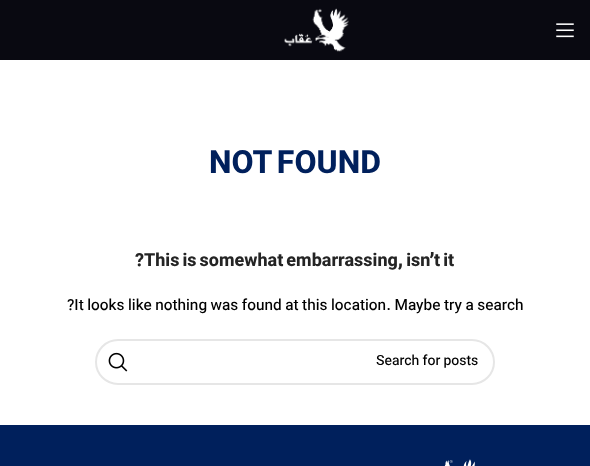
async function draw(canvas) {
  canvas.width = 590;
  canvas.height = 466;
  const ctx = canvas.getContext('2d');
  ctx.miterLimit = 4;
  ctx.fontKerning = 'normal';
  function label(s, x, y, font, color) {
    ctx.font = font;
    ctx.fillStyle = color;
    ctx.fillText(s, x, y);
  }
  function rect(x, y, w, h, color) {
    ctx.fillStyle = color;
    ctx.fillRect(x, y, w, h);
  }
  async function image(src, x, y, w, h) {
    const img = new Image();
    img.src = src;
    await img.decode();
    ctx.drawImage(img, x, y, w, h);
  }

  rect(0, 0, 590, 466, '#fff');
  rect(0, 0, 590, 60, '#090911');
  await image('assets/img1.png', 284, 8, 65, 44);
  await image('assets/img2.png', 556, 23, 18, 15);
  label('NOT FOUND', 209, 173, '800 32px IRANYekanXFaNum', '#00205c');
  label('?This is somewhat embarrassing, isn’t it', 135, 266, '800 18px IRANYekanXFaNum', '#242424');
  label('?It looks like nothing was found at this location. Maybe try a search', 67, 310, '500 15.4px IRANYekanXFaNum', '#000');
  ctx.beginPath();
  ctx.roundRect(96, 340, 398, 44, 22);
  ctx.strokeStyle = '#e6e6e6';
  ctx.lineWidth = 2;
  ctx.stroke();
  await image('assets/img3.png', 108, 352, 20, 20);
  label('Search for posts', 376, 365, '500 14px IRANYekanXFaNum', '#000');
  rect(0, 425, 590, 41, '#00205c');
  await image('assets/img4.png', 444, 459, 31, 7);
}

draw(document.querySelector('canvas'));
